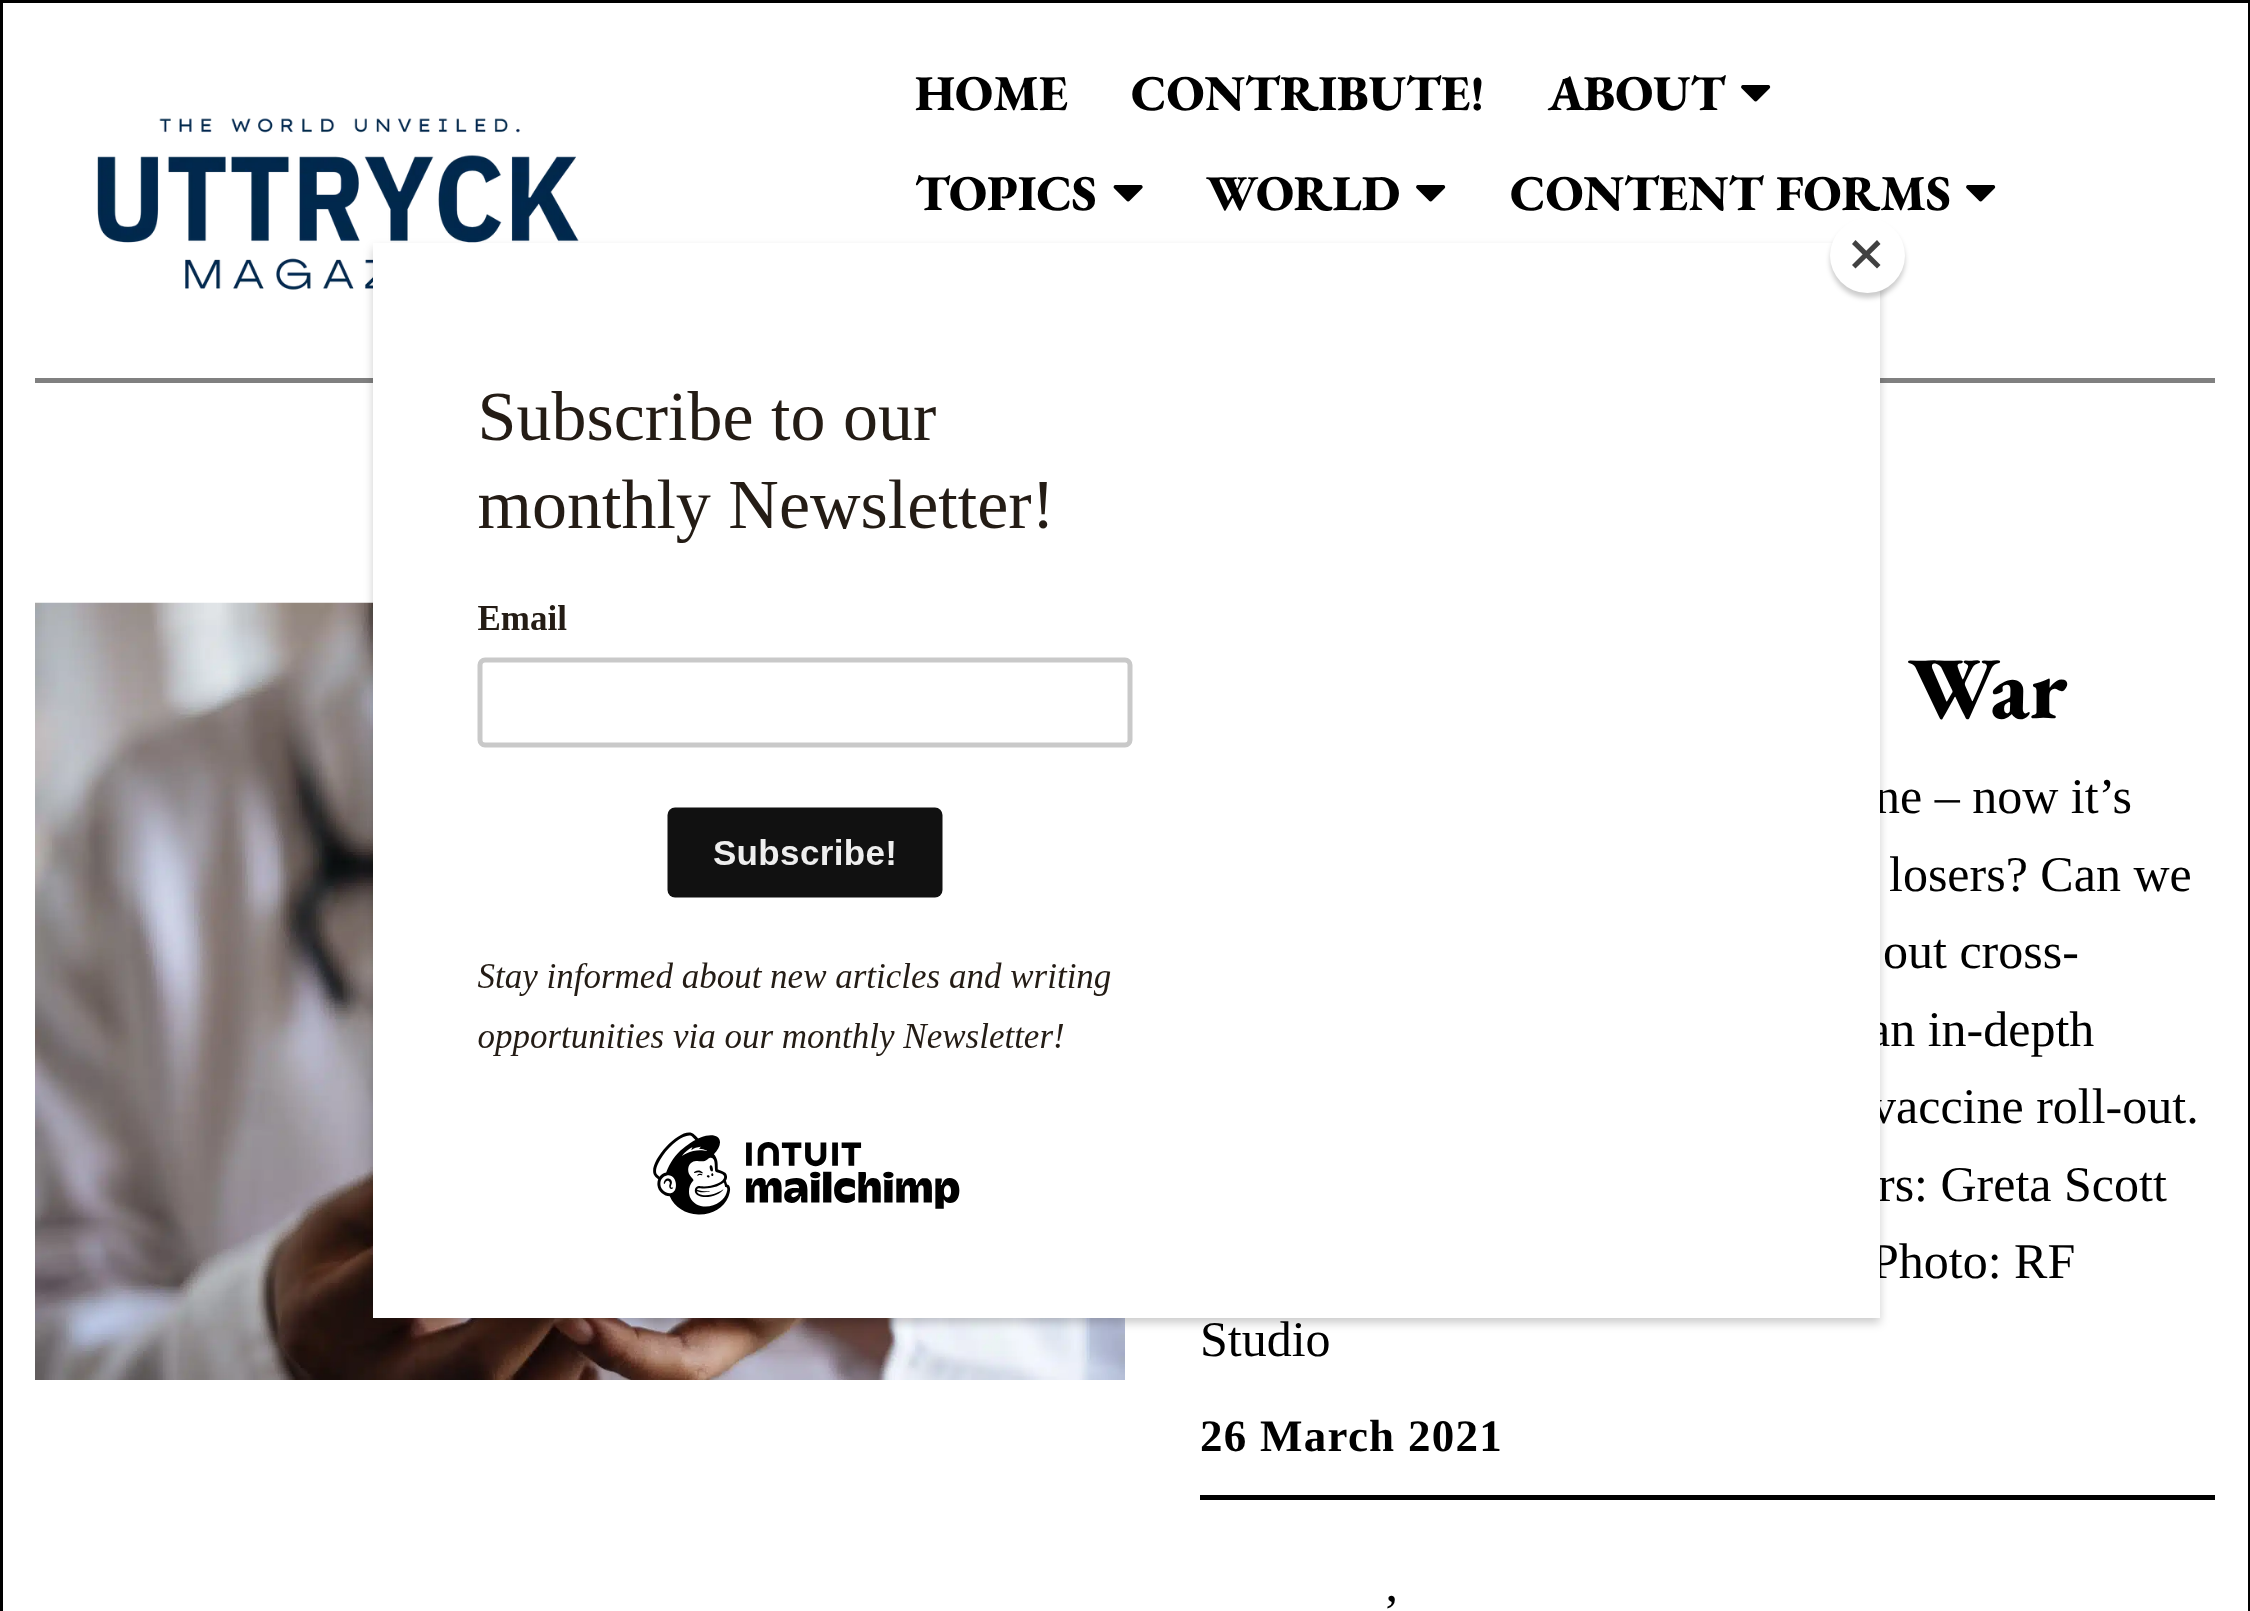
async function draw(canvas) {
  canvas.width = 2250;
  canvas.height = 1611;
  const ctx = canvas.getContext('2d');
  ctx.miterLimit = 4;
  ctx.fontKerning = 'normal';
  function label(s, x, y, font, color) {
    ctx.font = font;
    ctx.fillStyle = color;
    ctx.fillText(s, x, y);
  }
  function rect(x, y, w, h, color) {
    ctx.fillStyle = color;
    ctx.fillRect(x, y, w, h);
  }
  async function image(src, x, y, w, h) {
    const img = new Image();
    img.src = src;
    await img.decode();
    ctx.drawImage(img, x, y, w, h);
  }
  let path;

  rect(0, 0, 2250, 1611, '#fff');
  ctx.strokeStyle = '#000';
  ctx.lineWidth = 3;
  ctx.strokeRect(1.5, 1.5, 2247, 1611);
  await image('assets/img1.png', 97, 118, 482, 172);
  label('HOME', 915, 110, '800 50px EB Garamond', '#000');
  label('CONTRIBUTE!', 1131, 110, '800 50px EB Garamond', '#000');
  label('ABOUT', 1548, 110, '800 50px EB Garamond', '#000');
  await image('assets/img2.png', 1741, 85, 30, 17);
  label('TOPICS', 915, 210, '800 50px EB Garamond', '#000');
  await image('assets/img3.png', 1113, 185, 30, 17);
  label('WORLD', 1206, 210, '800 50px EB Garamond', '#000');
  await image('assets/img2.png', 1416, 185, 30, 17);
  label('CONTENT FORMS', 1510, 210, '800 50px EB Garamond', '#000');
  await image('assets/img2.png', 1966, 185, 30, 17);
  rect(35, 378, 2180, 5, '#808080');
  await image('assets/img4.png', 35, 602, 1090, 778);
  rect(1200, 1495, 1015, 5, '#000');
  label('War', 1908, 718, '800 88px EB Garamond', '#000');
  label('ne – now it’s', 1875, 813, '50px Liberation Serif', '#000');
  label('losers? Can we', 1889, 891, '50px Liberation Serif', '#000');
  label('out cross-', 1883, 968, '50px Liberation Serif', '#000');
  label('an in-depth', 1868, 1046, '50px Liberation Serif', '#000');
  label('vaccine roll-out.', 1871, 1123, '50px Liberation Serif', '#000');
  label('rs: Greta Scott', 1878, 1201, '50px Liberation Serif', '#000');
  label('Photo: RF', 1871, 1278, '50px Liberation Serif', '#000');
  label('Studio', 1200, 1356, '50px Liberation Serif', '#000');
  ctx.letterSpacing = '1.25px';
  label('26 March 2021', 1200, 1451, 'bold 45px Liberation Serif', '#000');
  ctx.letterSpacing = '0px';
  label('’', 1383, 1629, '50px Liberation Serif', '#000');
  rect(2247, 3, 1, 1608, '#fff');
  ctx.save();
  path = new Path2D('M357 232H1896V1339H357ZM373 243H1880V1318H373Z');
  ctx.clip(path, 'evenodd');
  ctx.fillStyle = '#00000033';
  ctx.filter = 'blur(5px)';
  ctx.beginPath();
  ctx.rect(373, 248, 1507, 1075);
  ctx.fill();
  ctx.filter = 'none';
  ctx.restore();
  await image('assets/img5.png', 373, 259, 1507, 1059);
  ctx.fillStyle = '#00000033';
  ctx.filter = 'blur(2.5px)';
  ctx.beginPath();
  ctx.roundRect(1830, 223, 75, 75, 37.5);
  ctx.fill();
  ctx.filter = 'none';
  ctx.fillStyle = '#fff';
  ctx.beginPath();
  ctx.arc(1867.5, 255.5, 37.5, 0, 2 * Math.PI);
  ctx.fill();
  ctx.fillStyle = '#414141';
  path = new Path2D('M1877 240L1880.5 244L1855.5 268.5L1852 265Z');
  ctx.fill(path);
  path = new Path2D('M1852 244L1855.5 240L1880.5 265L1877 268.5Z');
  ctx.fill(path);
}

draw(document.querySelector('canvas'));
